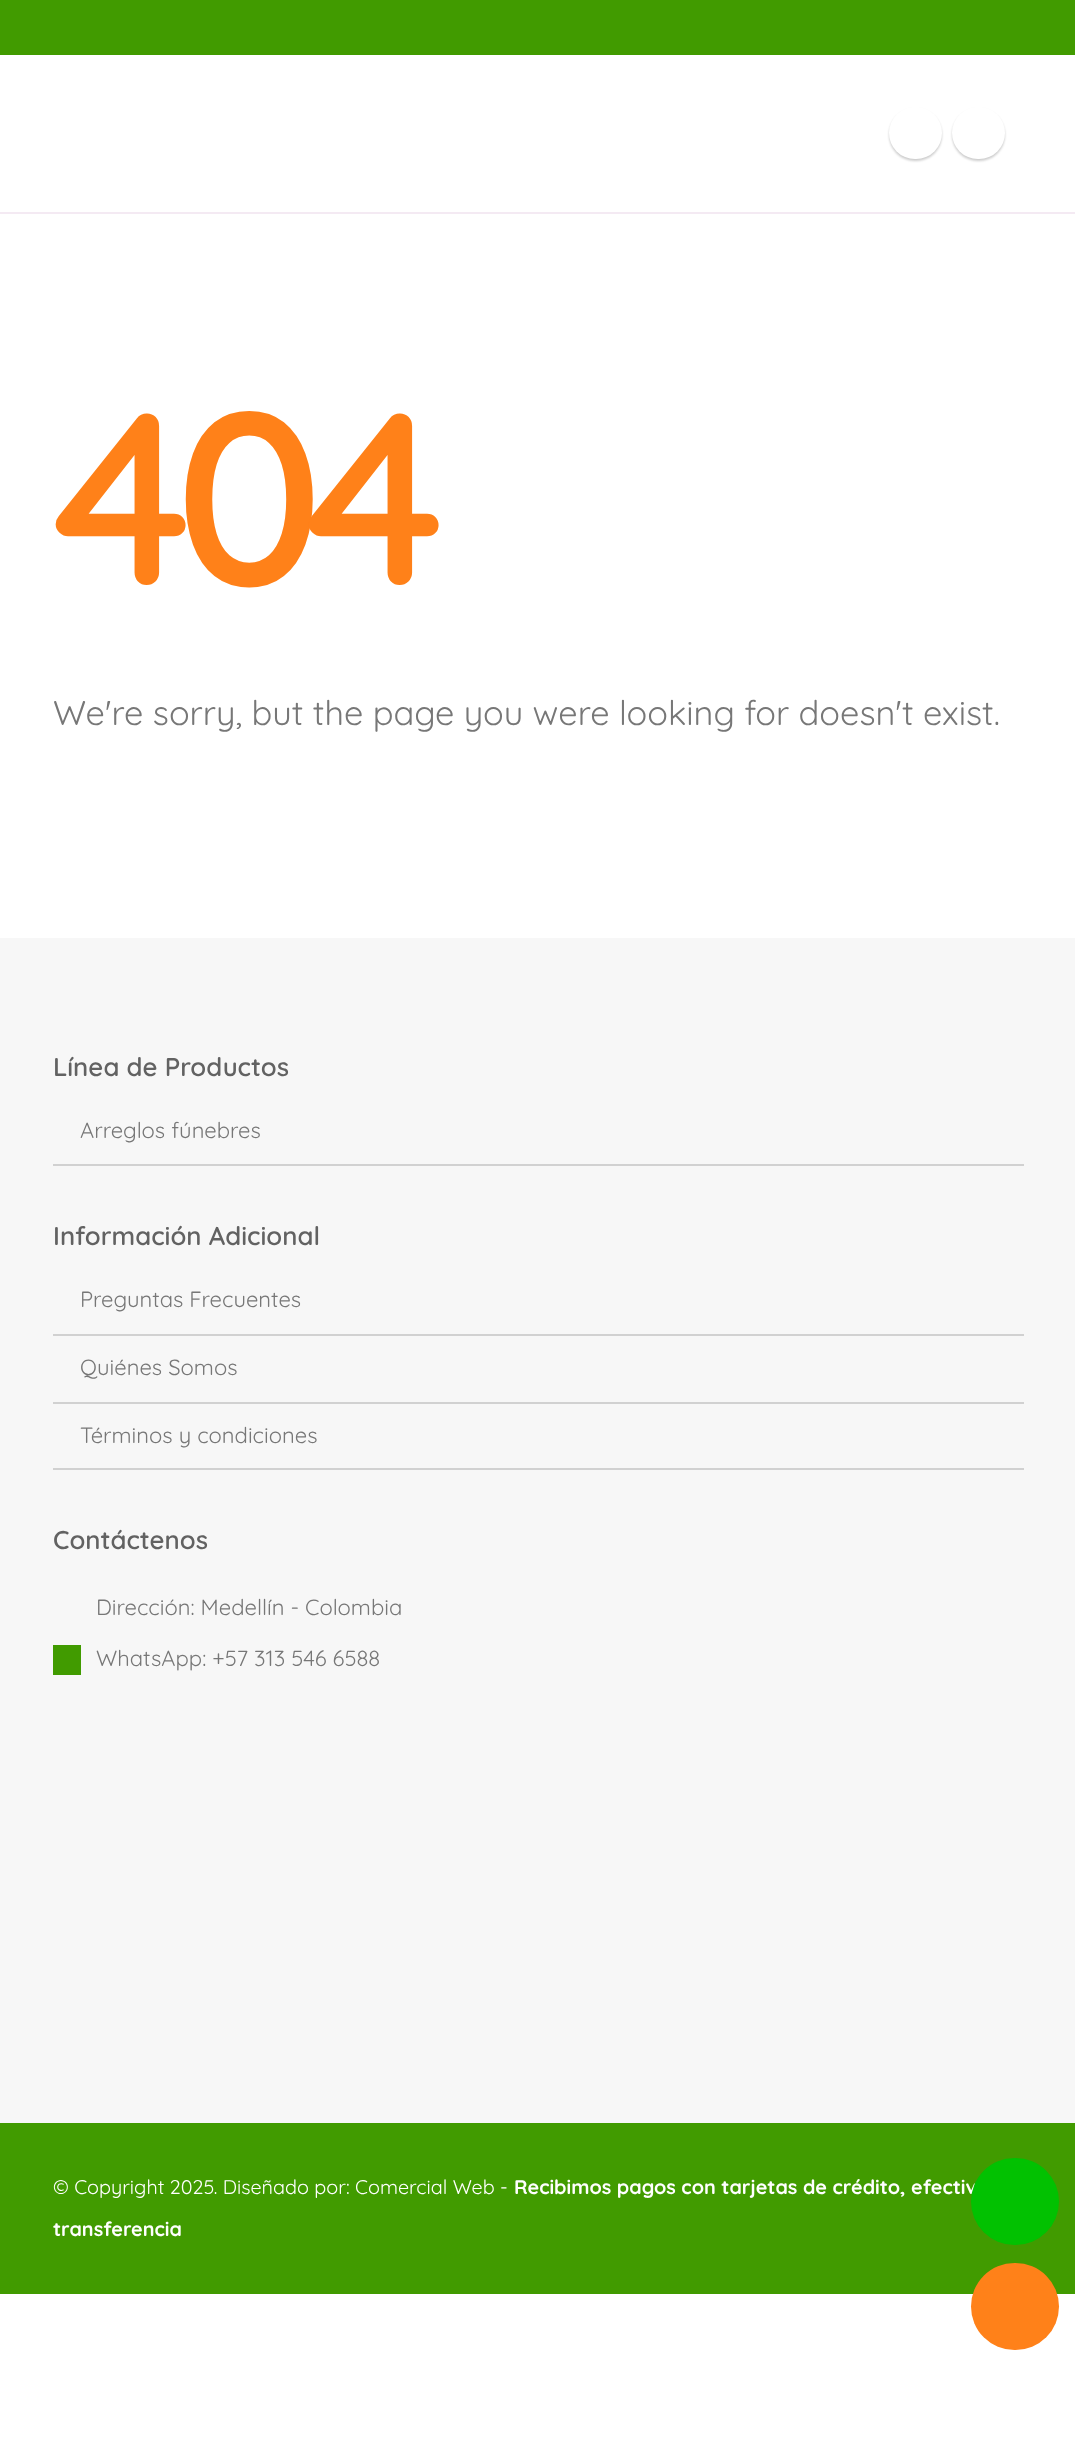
async function draw(canvas) {
  canvas.width = 1075;
  canvas.height = 2445;
  const ctx = canvas.getContext('2d');
  ctx.miterLimit = 4;
  ctx.fontKerning = 'normal';
  function label(s, x, y, font, color) {
    ctx.font = font;
    ctx.fillStyle = color;
    ctx.fillText(s, x, y);
  }
  function rect(x, y, w, h, color) {
    ctx.fillStyle = color;
    ctx.fillRect(x, y, w, h);
  }
  function roundedRect(x, y, w, h, r, color) {
    ctx.fillStyle = color;
    ctx.beginPath();
    ctx.roundRect(x, y, w, h, r);
    ctx.fill();
  }

  rect(0, 0, 1075, 2445, '#fff');
  rect(0, 0, 1075, 55, '#419b00');
  rect(0, 212, 1075, 2, '#f4eaf3');
  ctx.fillStyle = '#00000033';
  ctx.filter = 'blur(1px)';
  ctx.beginPath();
  ctx.roundRect(889, 109, 53, 52, 26);
  ctx.fill();
  ctx.filter = 'none';
  roundedRect(889, 107, 53, 52, 26, '#fff');
  ctx.fillStyle = '#00000033';
  ctx.filter = 'blur(1px)';
  ctx.beginPath();
  ctx.roundRect(952, 109, 53, 52, 26);
  ctx.fill();
  ctx.filter = 'none';
  roundedRect(952, 107, 53, 52, 26, '#fff');
  ctx.letterSpacing = '-17.5px';
  label('404', 53, 585, '600 245px Quicksand', '#ff8119');
  ctx.letterSpacing = '0px';
  label('We\'re sorry, but the page you were looking for doesn\'t exist.', 53, 725, '34.3px Quicksand', '#777');
  rect(0, 2123, 1075, 171, '#419b00');
  label('Recibimos pagos con tarjetas de crédito, efectiv', 514, 2194, 'bold 19.8px Quicksand', '#fff');
  roundedRect(971, 2158, 88, 87, 43.5, '#02c101');
  roundedRect(971, 2263, 88, 87, 43.5, '#ff8119');
  rect(0, 938, 1075, 1185, '#f7f7f7');
  label('Línea de Productos', 53, 1076, '600 25.75px Quicksand', '#626262');
  rect(53, 1164, 971, 2, '#d1d1d1');
  label('Arreglos fúnebres', 80, 1138, '22px Quicksand', '#777');
  label('Información Adicional', 53, 1245, '600 25.75px Quicksand', '#626262');
  rect(53, 1468, 971, 2, '#d1d1d1');
  label('Preguntas Frecuentes', 80, 1307, '22px Quicksand', '#777');
  rect(53, 1334, 971, 2, '#d1d1d1');
  label('Quiénes Somos', 80, 1375, '22px Quicksand', '#777');
  rect(53, 1402, 971, 2, '#d1d1d1');
  label('Términos y condiciones', 80, 1443, '22px Quicksand', '#777');
  label('Contáctenos', 53, 1549, '600 25.75px Quicksand', '#626262');
  label('Dirección: Medellín - Colombia', 96, 1615, '22px Quicksand', '#777');
  rect(53, 1645, 28, 30, '#419b00');
  label('WhatsApp: +57 313 546 6588', 96, 1666, '22px Quicksand', '#777');
  label('© Copyright 2025. Diseñado por: Comercial Web -', 53, 2194, '19.8px Quicksand', '#fff');
  label('transferencia', 53, 2236, 'bold 19.8px Quicksand', '#fff');
}

draw(document.querySelector('canvas'));
